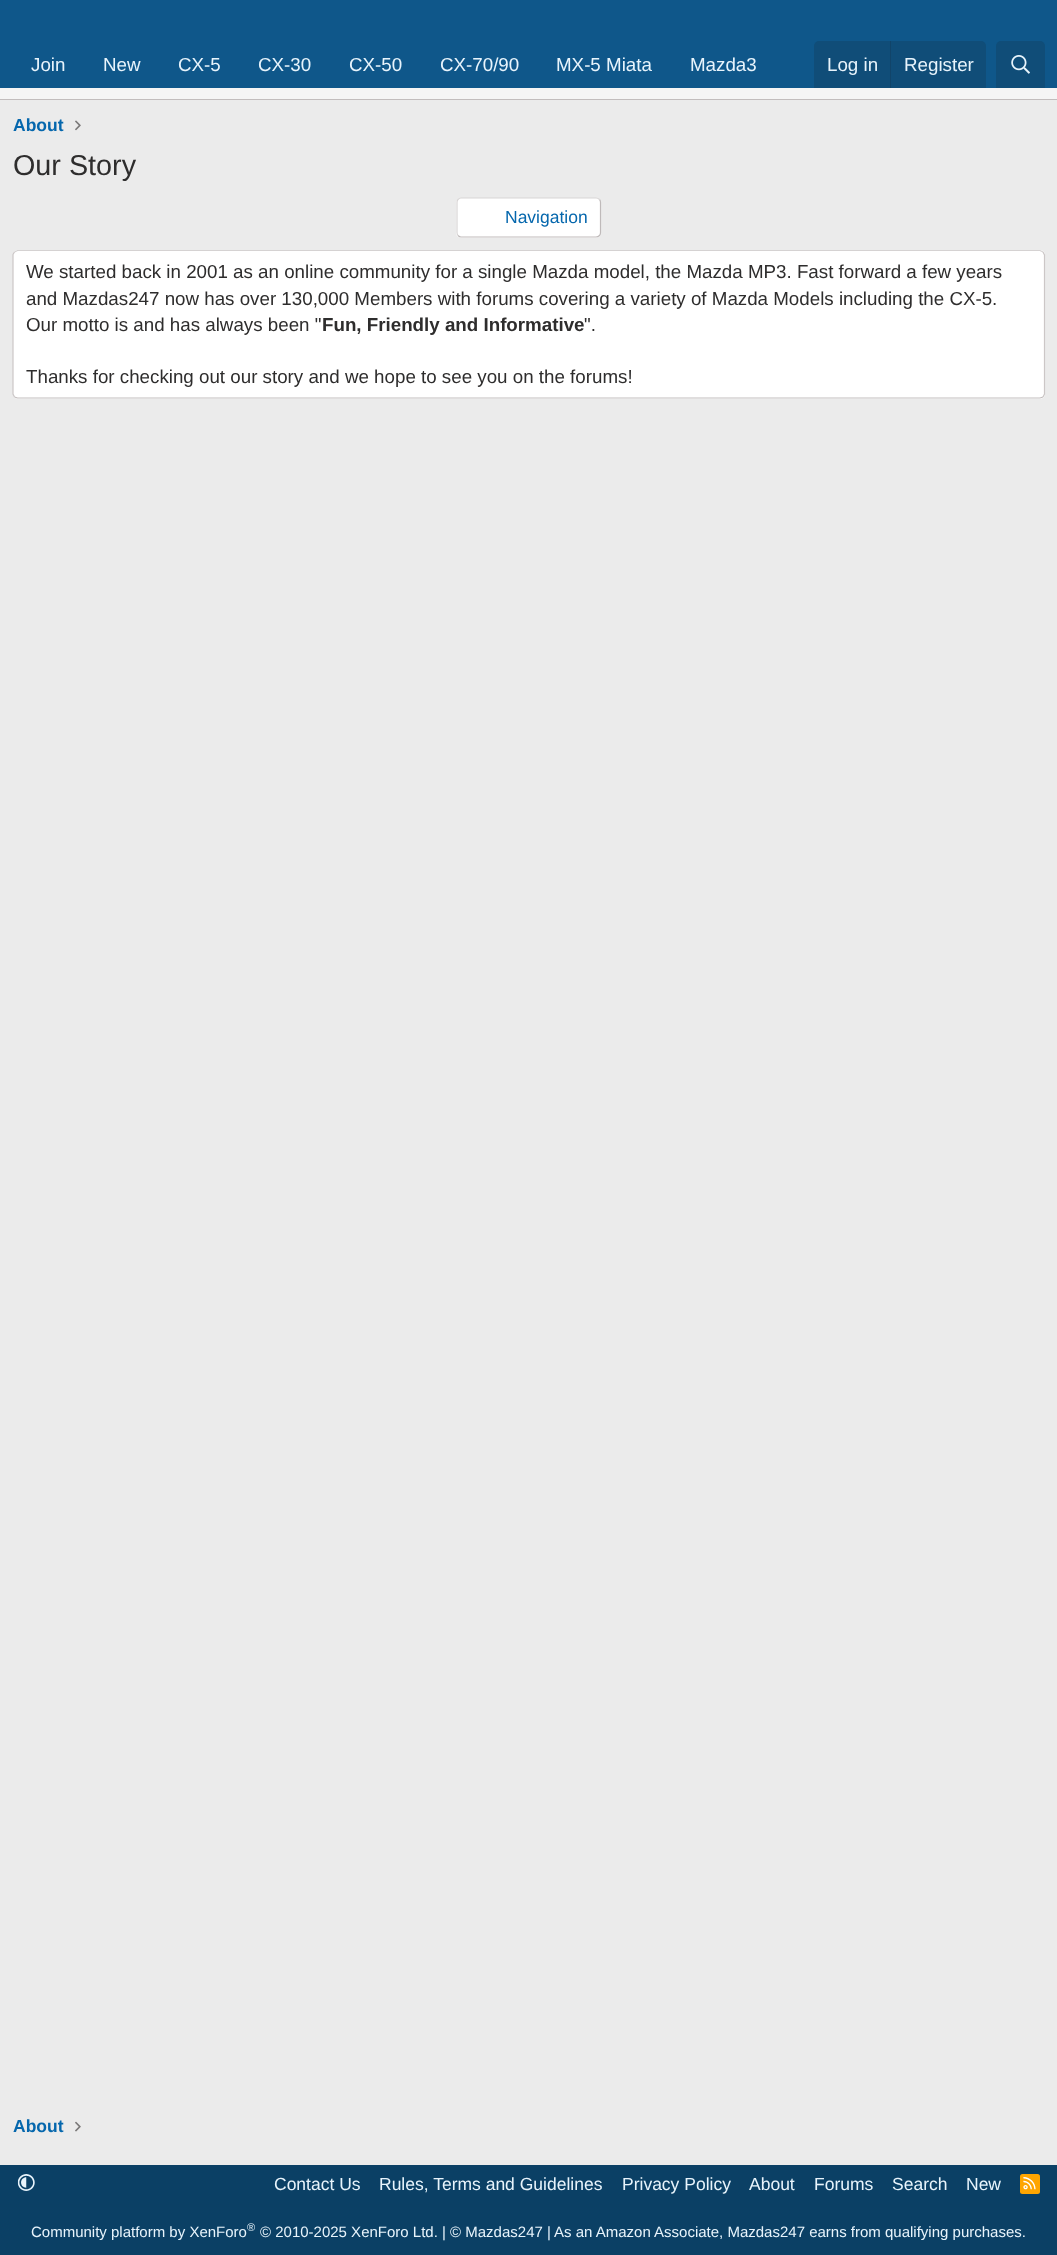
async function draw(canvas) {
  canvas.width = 1057;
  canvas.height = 2255;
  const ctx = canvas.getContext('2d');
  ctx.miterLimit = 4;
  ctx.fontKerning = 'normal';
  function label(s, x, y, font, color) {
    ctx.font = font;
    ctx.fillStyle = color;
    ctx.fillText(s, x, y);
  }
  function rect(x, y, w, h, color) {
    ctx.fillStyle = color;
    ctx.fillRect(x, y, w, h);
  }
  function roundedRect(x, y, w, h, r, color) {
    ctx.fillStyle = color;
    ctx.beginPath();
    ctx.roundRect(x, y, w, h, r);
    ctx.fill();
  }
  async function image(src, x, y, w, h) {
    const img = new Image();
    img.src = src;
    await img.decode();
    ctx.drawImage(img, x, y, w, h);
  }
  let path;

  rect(0, 0, 1057, 2255, '#ebebeb');
  rect(0, 0, 1057, 88, '#0f578a');
  label('Join', 31, 71, '18.75px Liberation Sans', '#e8f4fc');
  label('New', 103, 71, '18.75px Liberation Sans', '#e8f4fc');
  label('CX-5', 178, 71, '18.75px Liberation Sans', '#e8f4fc');
  label('CX-30', 258, 71, '18.75px Liberation Sans', '#e8f4fc');
  label('CX-50', 349, 71, '18.75px Liberation Sans', '#e8f4fc');
  label('CX-70/90', 440, 71, '18.75px Liberation Sans', '#e8f4fc');
  label('MX-5 Miata', 556, 71, '18.75px Liberation Sans', '#e8f4fc');
  label('Mazda3', 690, 71, '18.75px Liberation Sans', '#e8f4fc');
  ctx.fillStyle = '#104d78';
  ctx.beginPath();
  ctx.roundRect(814, 41, 172, 47, [5, 5, 0, 0]);
  ctx.fill();
  label('Log in', 827, 71, '18.75px Liberation Sans', '#e8f4fc');
  rect(890, 41, 1, 47, '#114469');
  label('Register', 904, 71, '18.75px Liberation Sans', '#e8f4fc');
  ctx.fillStyle = '#104d78';
  ctx.beginPath();
  ctx.roundRect(996, 41, 49, 47, [5, 5, 0, 0]);
  ctx.fill();
  await image('assets/img1.png', 1011, 55, 19, 19);
  rect(0, 88, 1057, 11, '#f5f5f5');
  rect(0, 99, 1057, 1, '#c2bdbd');
  label('About', 13, 131, 'bold 17.5px Liberation Sans', '#0567ad');
  await image('assets/img2.png', 75, 120, 6, 11);
  label('Our Story', 13, 175, '28.75px Liberation Sans', '#2e2d2d');
  roundedRect(456, 198, 145, 40, 5, '#fff');
  path = new Path2D('M599.5 199.5C600 200 600.5 201.5 600.5 202.5V232.5C600.5 233.5 600 235 599.5 235.5C598.5 236.5 597.5 237 596 237H461C460 237 459 236.5 458 235.5');
  ctx.strokeStyle = '#bfbaba';
  ctx.lineWidth = 1.2;
  ctx.stroke(path);
  path = new Path2D('M458 235.5C457.5 235 457 233.5 457 232.5V202.5C457 201.5 457.5 200 458 199.5C459 198.5 460 198 461 198H596C597.5 198 598.5 198.5 599.5 199.5');
  ctx.strokeStyle = '#d8d5d5';
  ctx.stroke(path);
  label('Navigation', 505, 223, '17.5px Liberation Sans', '#0567ad');
  roundedRect(13, 250, 1032, 149, 5, '#fff');
  path = new Path2D('M14.5 252L17.5 250.5H1040L1043 252');
  ctx.strokeStyle = '#d5d2d2';
  ctx.stroke(path);
  path = new Path2D('M1043 252L1044.5 255V394L1043 397');
  ctx.strokeStyle = '#ccc7c7';
  ctx.stroke(path);
  path = new Path2D('M1043 397L1040 398H17.5L14.5 397');
  ctx.strokeStyle = '#c2bdbd';
  ctx.stroke(path);
  path = new Path2D('M14.5 397L13 394V254.5L14.5 252');
  ctx.strokeStyle = '#ccc7c7';
  ctx.stroke(path);
  label('We started back in 2001 as an online community for a single Mazda model, the Mazda MP3. Fast forward a few years', 26, 278, '18.75px Liberation Sans', '#2e2d2d');
  label('and Mazdas247 now has over 130,000 Members with forums covering a variety of Mazda Models including the CX-5.', 26, 305, '18.75px Liberation Sans', '#2e2d2d');
  label('Our motto is and has always been "', 26, 331, '18.75px Liberation Sans', '#2e2d2d');
  label('Fun, Friendly and Informative', 322, 331, 'bold 18.75px Liberation Sans', '#2e2d2d');
  label('".', 584, 331, '18.75px Liberation Sans', '#2e2d2d');
  label('Thanks for checking out our story and we hope to see you on the forums!', 26, 383, '18.75px Liberation Sans', '#2e2d2d');
  label('About', 13, 2132, 'bold 17.5px Liberation Sans', '#0567ad');
  await image('assets/img3.png', 75, 2121, 6, 11);
  rect(0, 2165, 1057, 90, '#0b4065');
  await image('assets/img4.png', 17, 2174, 18, 17);
  label('Contact Us', 274, 2190, '17.5px Liberation Sans', '#e8f4fc');
  label('Rules, Terms and Guidelines', 379, 2190, '17.5px Liberation Sans', '#e8f4fc');
  label('Privacy Policy', 622, 2190, '17.5px Liberation Sans', '#e8f4fc');
  label('About', 749, 2190, '17.5px Liberation Sans', '#e8f4fc');
  label('Forums', 814, 2190, '17.5px Liberation Sans', '#e8f4fc');
  label('Search', 892, 2190, '17.5px Liberation Sans', '#e8f4fc');
  label('New', 966, 2190, '17.5px Liberation Sans', '#e8f4fc');
  roundedRect(1020, 2174, 20, 20, 2.5, '#ffa500');
  await image('assets/img5.png', 1023, 2177, 13, 13);
  label('Community platform by XenForo', 31, 2237, '15px Liberation Sans', '#e8f4fc');
  label('®', 247, 2231, '11px Liberation Sans', '#e8f4fc');
  label('© 2010-2025 XenForo Ltd.', 260, 2237, '15px Liberation Sans', '#e8f4fc');
  label('| © Mazdas247 |', 442, 2237, '15px Liberation Sans', '#e8f4fc');
  label('As an Amazon Associate, Mazdas247 earns from qualifying purchases.', 554, 2237, '15px Liberation Sans', '#e8f4fc');
}

draw(document.querySelector('canvas'));
